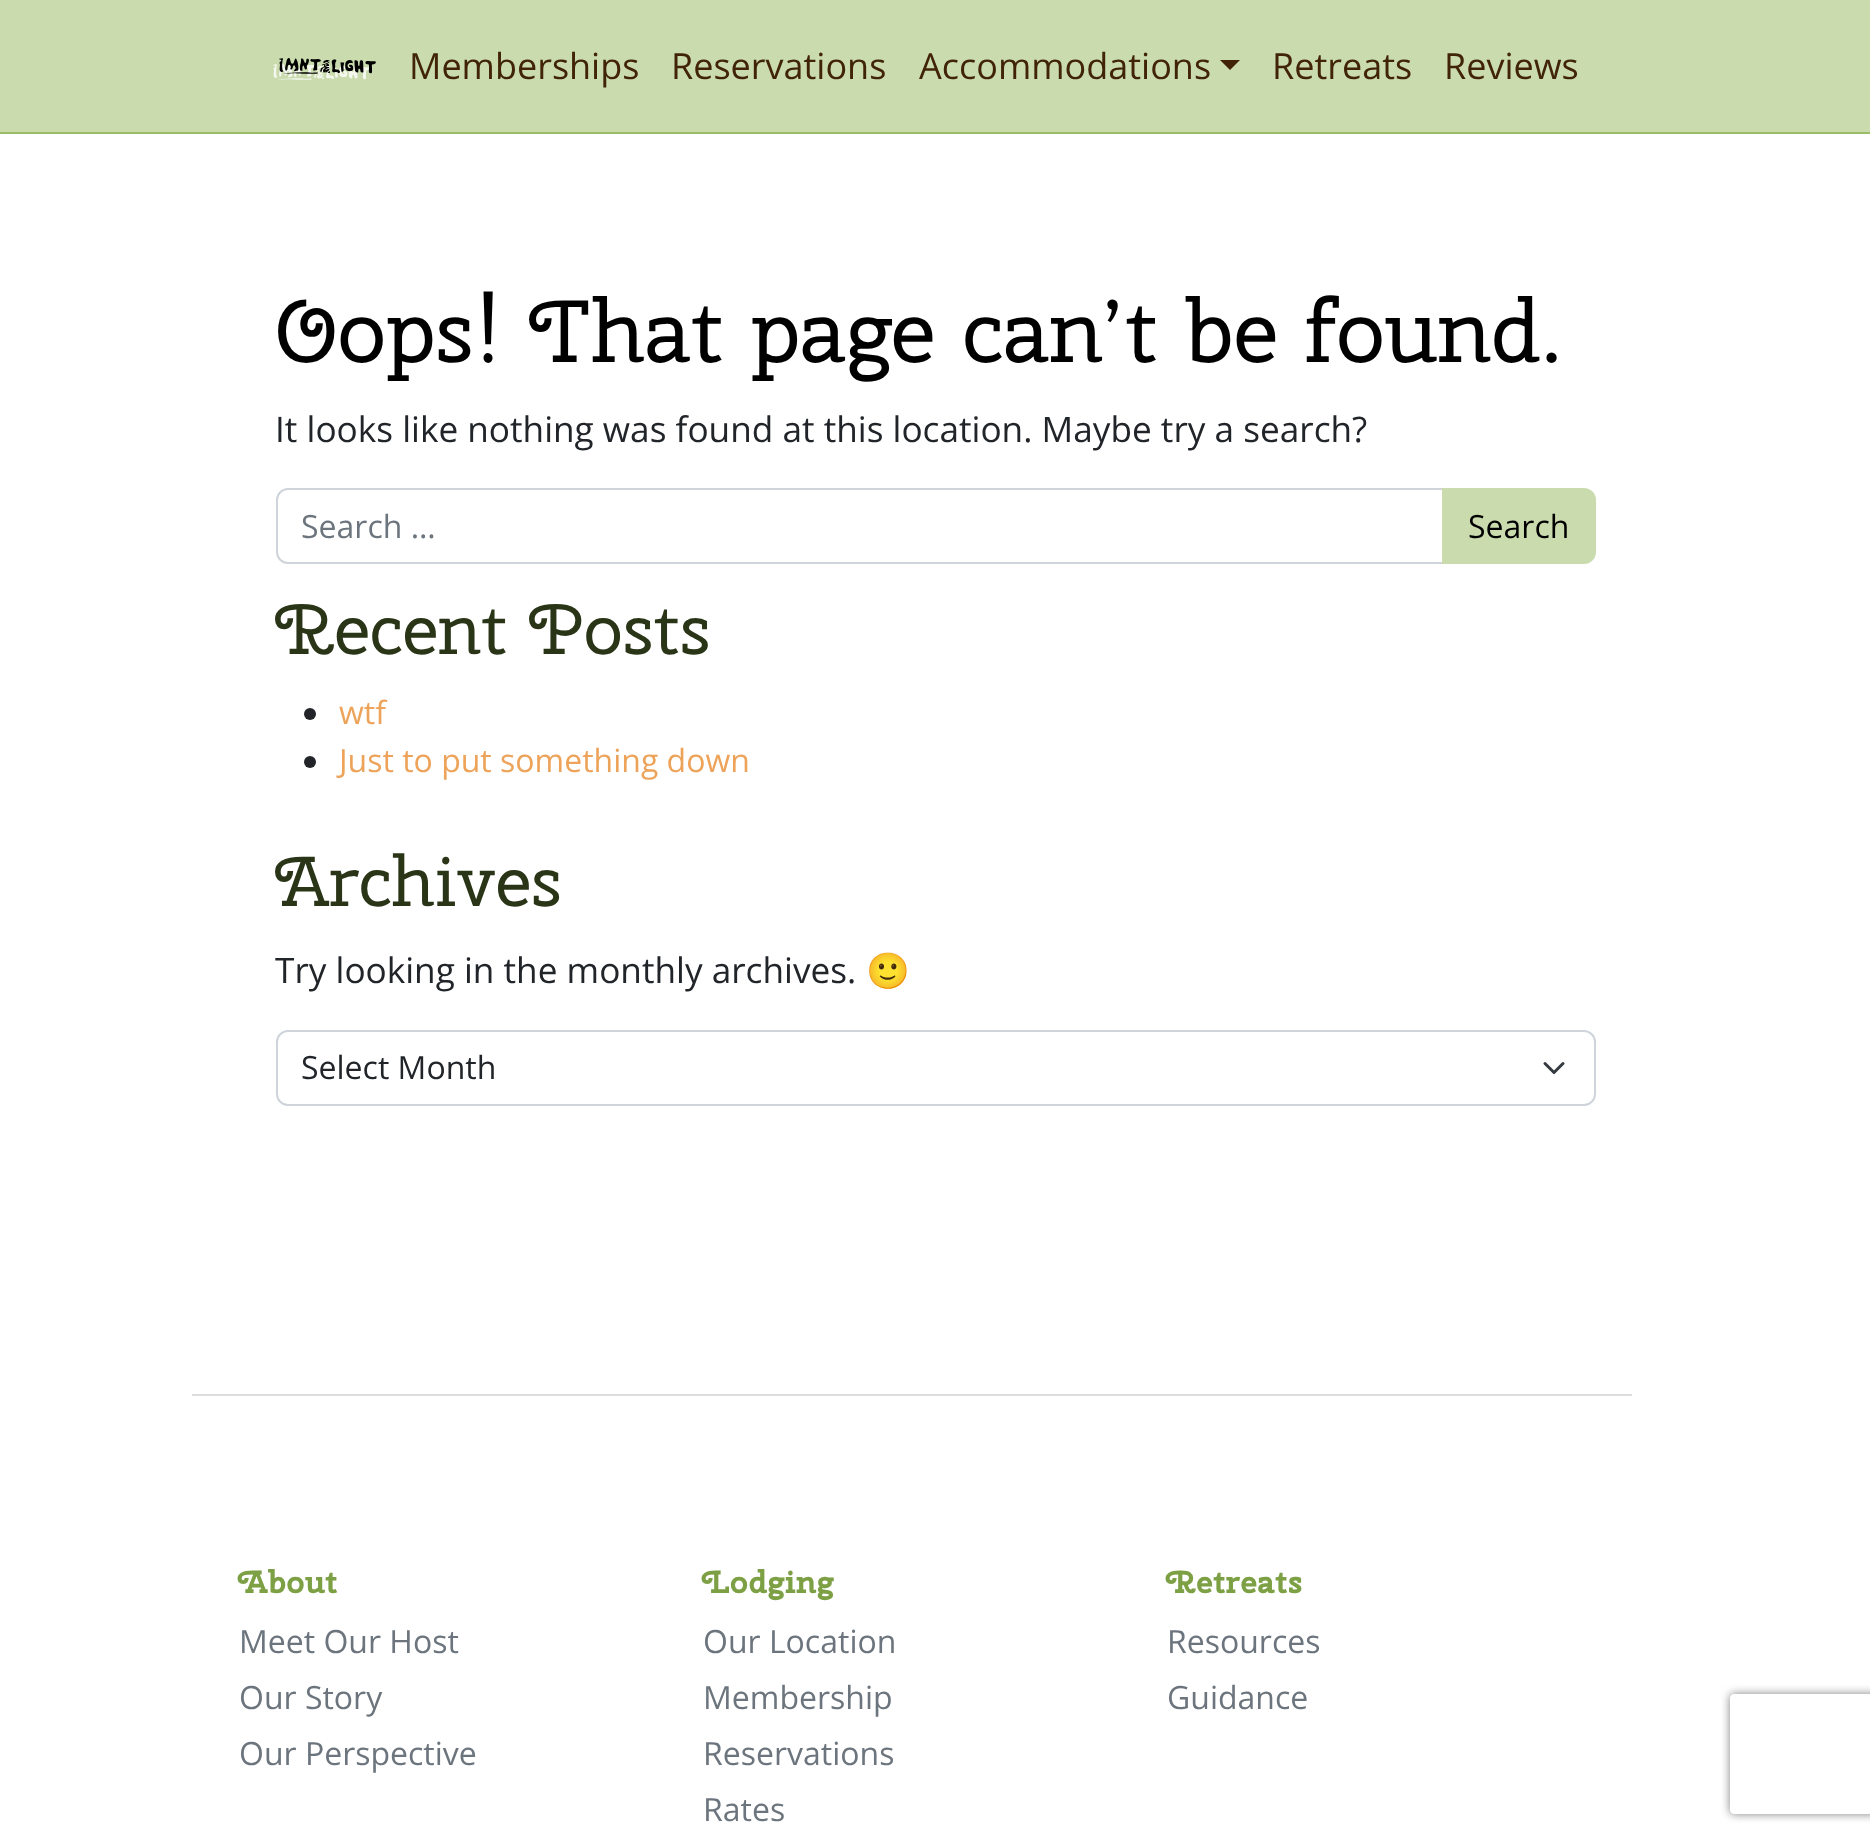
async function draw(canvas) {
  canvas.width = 1870;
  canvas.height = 1841;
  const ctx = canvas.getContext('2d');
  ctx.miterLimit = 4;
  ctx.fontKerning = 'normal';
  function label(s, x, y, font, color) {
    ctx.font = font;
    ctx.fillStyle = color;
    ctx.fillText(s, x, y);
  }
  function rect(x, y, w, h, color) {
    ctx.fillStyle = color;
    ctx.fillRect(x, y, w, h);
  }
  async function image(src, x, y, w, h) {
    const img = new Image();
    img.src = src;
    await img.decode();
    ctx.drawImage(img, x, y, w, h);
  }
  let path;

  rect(0, 0, 1870, 1841, '#fff');
  rect(0, 132, 1870, 2, '#9bbd67');
  rect(0, 0, 1870, 132, '#cadcae');
  await image('assets/img1.png', 273, 58, 103, 22);
  label('Memberships', 409, 79, '36px Open Sans', '#412407');
  label('Reservations', 671, 79, '36px Open Sans', '#412407');
  label('Accommodations', 919, 79, '36px Open Sans', '#412407');
  path = new Path2D('M1220 60H1240L1230 70Z');
  ctx.fill(path);
  label('Retreats', 1272, 79, '36px Open Sans', '#412407');
  label('Reviews', 1444, 79, '36px Open Sans', '#412407');
  label('Oops! That page can’t be found.', 275, 362, '88px Cherry Swash', '#000');
  label('It looks like nothing was found at this location. Maybe try a search?', 275, 442, '35.2px Open Sans', '#212529');
  ctx.beginPath();
  ctx.roundRect(277, 489, 1166, 74, [11, 0, 0, 11]);
  ctx.strokeStyle = '#ced4da';
  ctx.lineWidth = 2;
  ctx.stroke();
  label('Search …', 301, 538, '32px Open Sans', '#6c757d');
  ctx.fillStyle = '#cadcae';
  ctx.beginPath();
  ctx.roundRect(1443, 489, 152, 74, [0, 11, 11, 0]);
  ctx.fill();
  ctx.strokeStyle = '#cadcae';
  ctx.stroke();
  label('Search', 1468, 538, '32px Open Sans', '#000');
  label('Recent Posts', 275, 654, '70.5px Cherry Swash', '#2a3517');
  ctx.fillStyle = '#212529';
  ctx.beginPath();
  ctx.arc(310, 714, 6, 0, 2 * Math.PI);
  ctx.fill();
  label('wtf', 339, 724, '32px Open Sans', '#eda35a');
  ctx.fillStyle = '#212529';
  ctx.beginPath();
  ctx.arc(310, 762, 6, 0, 2 * Math.PI);
  ctx.fill();
  label('Just to put something down', 339, 772, '32px Open Sans', '#eda35a');
  label('Archives', 275, 906, '70.5px Cherry Swash', '#2a3517');
  label('Try looking in the monthly archives.', 275, 983, '35.2px Open Sans', '#212529');
  label('🙂', 866, 983, '35.2px Noto Color Emoji', '#212529');
  path = new Path2D('M1545 1063.5L1554 1072.5L1563 1063.5');
  ctx.strokeStyle = '#343a40';
  ctx.lineWidth = 3;
  ctx.lineCap = 'round';
  ctx.lineJoin = 'round';
  ctx.stroke(path);
  ctx.beginPath();
  ctx.roundRect(277, 1031, 1318, 74, 11);
  ctx.strokeStyle = '#ced4da';
  ctx.lineWidth = 2;
  ctx.lineJoin = 'miter';
  ctx.stroke();
  label('Select Month', 301, 1079, '32px Open Sans', '#212529');
  rect(192, 1394, 1440, 2, '#ddd');
  label('About', 239, 1593, 'bold 32px Cherry Swash', '#7da045');
  label('Meet Our Host', 239, 1653, '32px Open Sans', '#6c757d');
  label('Our Story', 239, 1709, '32px Open Sans', '#6c757d');
  label('Our Perspective', 239, 1765, '32px Open Sans', '#6c757d');
  label('Lodging', 703, 1593, 'bold 32px Cherry Swash', '#7da045');
  label('Our Location', 703, 1653, '32px Open Sans', '#6c757d');
  label('Membership', 703, 1709, '32px Open Sans', '#6c757d');
  label('Reservations', 703, 1765, '32px Open Sans', '#6c757d');
  label('Rates', 703, 1821, '32px Open Sans', '#6c757d');
  label('Retreats', 1167, 1593, 'bold 32px Cherry Swash', '#7da045');
  label('Resources', 1167, 1653, '32px Open Sans', '#6c757d');
  label('Guidance', 1167, 1709, '32px Open Sans', '#6c757d');
  ctx.save();
  path = new Path2D('M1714 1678H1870V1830H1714ZM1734 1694H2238C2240 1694 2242 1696 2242 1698V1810C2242 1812 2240 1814 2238 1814H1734C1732 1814 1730 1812 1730 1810V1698C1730 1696 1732 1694 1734 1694Z');
  ctx.clip(path, 'evenodd');
  ctx.fillStyle = '#808080';
  ctx.filter = 'blur(5px)';
  ctx.beginPath();
  ctx.roundRect(1730, 1694, 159, 120, 4);
  ctx.fill();
  ctx.filter = 'none';
  ctx.restore();
}

draw(document.querySelector('canvas'));
